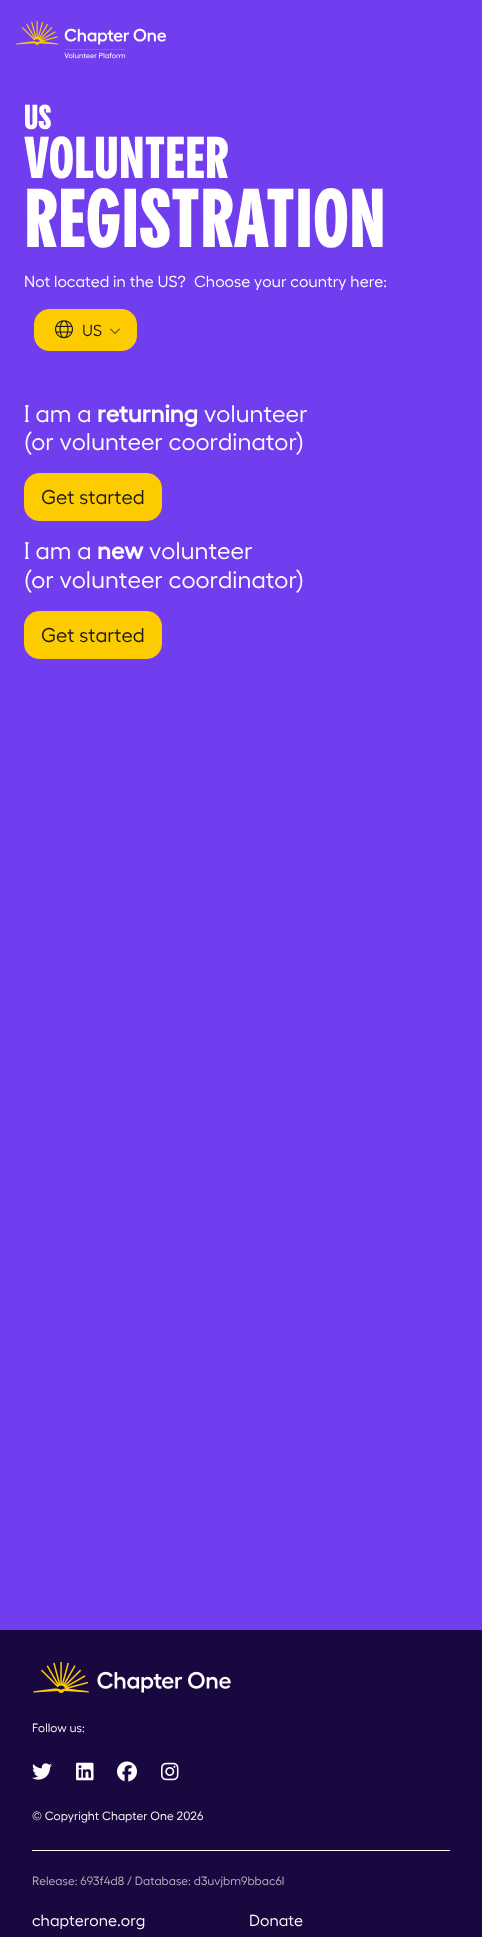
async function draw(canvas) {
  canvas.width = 482;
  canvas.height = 1937;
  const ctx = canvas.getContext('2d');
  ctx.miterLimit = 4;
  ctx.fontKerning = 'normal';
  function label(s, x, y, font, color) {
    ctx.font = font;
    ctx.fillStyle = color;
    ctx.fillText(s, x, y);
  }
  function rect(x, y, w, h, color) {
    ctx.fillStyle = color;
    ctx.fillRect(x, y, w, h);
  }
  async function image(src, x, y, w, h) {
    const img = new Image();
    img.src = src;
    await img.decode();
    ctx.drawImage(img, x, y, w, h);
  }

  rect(0, 0, 482, 1937, '#703eef');
  await image('assets/img1.png', 16, 21, 150, 38);
  label('US', 24, 129, '800 34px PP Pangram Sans', '#fff');
  label('VOLUNTEER', 24, 178, '800 58px PP Pangram Sans', '#fff');
  label('REGISTRATION', 24, 247, '800 82px PP Pangram Sans', '#fff');
  label('Not located in the US?', 24, 287, '16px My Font', '#fff');
  label('Choose your country here:', 194, 287, '16px My Font', '#fff');
  ctx.fillStyle = '#fccc00';
  ctx.beginPath();
  ctx.roundRect(34.5, 309.5, 102, 41, 14.5);
  ctx.fill();
  ctx.strokeStyle = '#fccc00';
  ctx.stroke();
  await image('assets/img2.png', 55, 320, 18, 19);
  label('US', 82, 336, '16px My Font', '#1a191a');
  await image('assets/img3.png', 110, 328, 10, 6);
  label('I am a', 24, 422, '24px My Font', '#fff');
  label('returning', 97, 422, 'bold 24px My Font', '#fff');
  label('volunteer', 204, 422, '24px My Font', '#fff');
  label('(or volunteer coordinator)', 24, 450, '24px My Font', '#fff');
  ctx.fillStyle = '#fccc00';
  ctx.beginPath();
  ctx.roundRect(24.5, 473.5, 137, 47, 14.5);
  ctx.fill();
  ctx.stroke();
  label('Get started', 41, 504, '20px My Font', '#1a191a');
  label('I am a', 24, 559, '24px My Font', '#fff');
  label('new', 97, 559, 'bold 24px My Font', '#fff');
  label('volunteer', 149, 559, '24px My Font', '#fff');
  label('(or volunteer coordinator)', 24, 588, '24px My Font', '#fff');
  ctx.fillStyle = '#fccc00';
  ctx.beginPath();
  ctx.roundRect(24.5, 611.5, 137, 47, 14.5);
  ctx.fill();
  ctx.stroke();
  label('Get started', 41, 642, '20px My Font', '#1a191a');
  rect(0, 1630, 482, 307, '#18083f');
  await image('assets/img4.png', 33, 1662, 198, 31);
  label('Follow us:', 32, 1732, '12px My Font', '#fff');
  await image('assets/img5.png', 32, 1763, 20, 17);
  await image('assets/img6.png', 76, 1762, 18, 19);
  await image('assets/img7.png', 117, 1761, 20, 21);
  await image('assets/img8.png', 161, 1762, 18, 19);
  rect(32, 1850, 418, 1, '#fff');
  label('© Copyright Chapter One 2026', 32, 1820, '12px My Font', '#fff');
  label('Release: 693f4d8 / Database: d3uvjbm9bbac6l', 32, 1885, '12px My Font', '#b9b5c4');
  label('chapterone.org', 32, 1926, '16px My Font', '#fff');
  label('Donate', 249, 1926, '16px My Font', '#fff');
}

draw(document.querySelector('canvas'));
